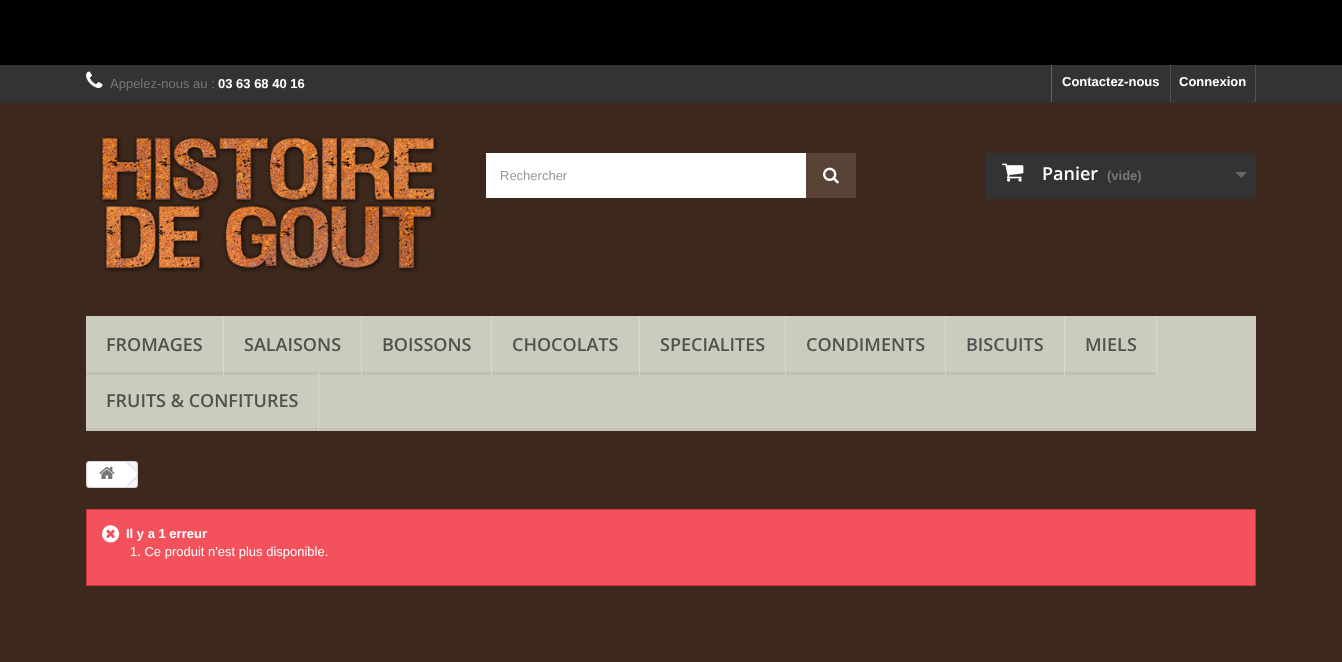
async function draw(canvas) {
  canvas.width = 1342;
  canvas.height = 662;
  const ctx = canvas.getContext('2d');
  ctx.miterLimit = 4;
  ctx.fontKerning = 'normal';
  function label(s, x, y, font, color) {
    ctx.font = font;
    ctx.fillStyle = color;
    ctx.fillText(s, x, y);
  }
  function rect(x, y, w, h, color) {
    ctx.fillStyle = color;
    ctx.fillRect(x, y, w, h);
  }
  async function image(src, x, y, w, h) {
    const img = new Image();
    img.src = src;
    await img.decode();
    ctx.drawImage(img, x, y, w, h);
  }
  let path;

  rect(0, 0, 1342, 662, '#3c281c');
  rect(0, 0, 1342, 65, '#000');
  rect(0, 65, 1342, 38, '#333');
  await image('assets/img1.png', 86, 71, 17, 17);
  label('Appelez-nous au :', 110, 88, '13px Liberation Sans', '#777');
  label('03 63 68 40 16', 218, 88, 'bold 13px Liberation Sans', '#fff');
  rect(1051, 65, 1, 37, '#656565');
  label('Contactez-nous', 1062, 86, 'bold 13px Liberation Sans', '#fff');
  rect(1255, 65, 1, 37, '#515151');
  rect(1170, 65, 1, 37, '#515151');
  label('Connexion', 1179, 86, 'bold 13px Liberation Sans', '#fff');
  await image('assets/img2.png', 100, 136, 338, 136);
  rect(486, 153, 320, 45, '#fff');
  label('Rechercher', 500, 180, '13px Liberation Sans', '#999');
  rect(806, 153, 50, 45, '#584336');
  await image('assets/img3.png', 823, 167, 16, 17);
  rect(986, 153, 270, 46, '#333');
  await image('assets/img4.png', 1002, 163, 22, 19);
  label('Panier', 1042, 180, '600 18px Open Sans', '#fff');
  label('(vide)', 1107, 180, 'bold 13px Liberation Sans', '#777');
  await image('assets/img5.png', 1236, 172, 11, 6);
  rect(86, 316, 1170, 112, '#cbccbe');
  rect(86, 428, 1170, 3, '#c1c2b4');
  rect(223, 316, 1, 59, '#d8d9ce');
  rect(86, 372, 137, 3, '#c1c2b4');
  label('FROMAGES', 106, 351, '600 18px Open Sans', '#515150');
  rect(361, 316, 1, 59, '#d8d9ce');
  rect(224, 372, 137, 3, '#c1c2b4');
  label('SALAISONS', 244, 351, '600 18px Open Sans', '#515150');
  rect(491, 316, 1, 59, '#d8d9ce');
  rect(362, 372, 129, 3, '#c1c2b4');
  label('BOISSONS', 382, 351, '600 18px Open Sans', '#515150');
  rect(639, 316, 1, 59, '#d8d9ce');
  rect(492, 372, 147, 3, '#c1c2b4');
  label('CHOCOLATS', 512, 351, '600 18px Open Sans', '#515150');
  rect(785, 316, 1, 59, '#d8d9ce');
  rect(640, 372, 145, 3, '#c1c2b4');
  label('SPECIALITES', 660, 351, '600 18px Open Sans', '#515150');
  rect(945, 316, 1, 59, '#d8d9ce');
  rect(786, 372, 159, 3, '#c1c2b4');
  label('CONDIMENTS', 806, 351, '600 18px Open Sans', '#515150');
  rect(1064, 316, 1, 59, '#d8d9ce');
  rect(946, 372, 118, 3, '#c1c2b4');
  label('BISCUITS', 966, 351, '600 18px Open Sans', '#515150');
  rect(1156, 316, 1, 59, '#d8d9ce');
  rect(1065, 372, 91, 3, '#c1c2b4');
  label('MIELS', 1085, 351, '600 18px Open Sans', '#515150');
  rect(318, 372, 1, 59, '#d8d9ce');
  label('FRUITS & CONFITURES', 106, 407, '600 18px Open Sans', '#515150');
  ctx.fillStyle = '#f6f6f6';
  ctx.beginPath();
  ctx.roundRect(86.5, 461.5, 51, 26, 2.5);
  ctx.fill();
  ctx.strokeStyle = '#d6d4d4';
  ctx.stroke();
  ctx.fillStyle = '#fff';
  ctx.beginPath();
  ctx.roundRect(88, 462, 38, 25, [3, 0, 0, 3]);
  ctx.fill();
  await image('assets/img6.png', 99, 466, 16, 13);
  path = new Path2D('M128.5 463L137 471.5V477L128.5 485.5C127.5 486.5 126.5 486.5 125.5 485.5L115.5 475.5C115 475 115 473.5 115.5 473L125.5 463C126.5 462 127.5 462 128.5 463Z');
  ctx.fill(path);
  ctx.fillStyle = '#d6d4d4';
  path = new Path2D('M127.5 462L137 471.5V472.5L127 463ZM137 475.5V477L127.5 486L127 485.5Z');
  ctx.fill(path);
  ctx.fillStyle = '#f3515c';
  ctx.beginPath();
  ctx.rect(86.5, 509.5, 1169, 76);
  ctx.fill();
  ctx.strokeStyle = '#d4323d';
  ctx.stroke();
  await image('assets/img7.png', 102, 525, 18, 18);
  label('Il y a 1 erreur', 126, 538, 'bold 13px Liberation Sans', '#fff');
  label('1. Ce produit n\'est plus disponible.', 130, 556, '13px Liberation Sans', '#fff');
}

draw(document.querySelector('canvas'));
